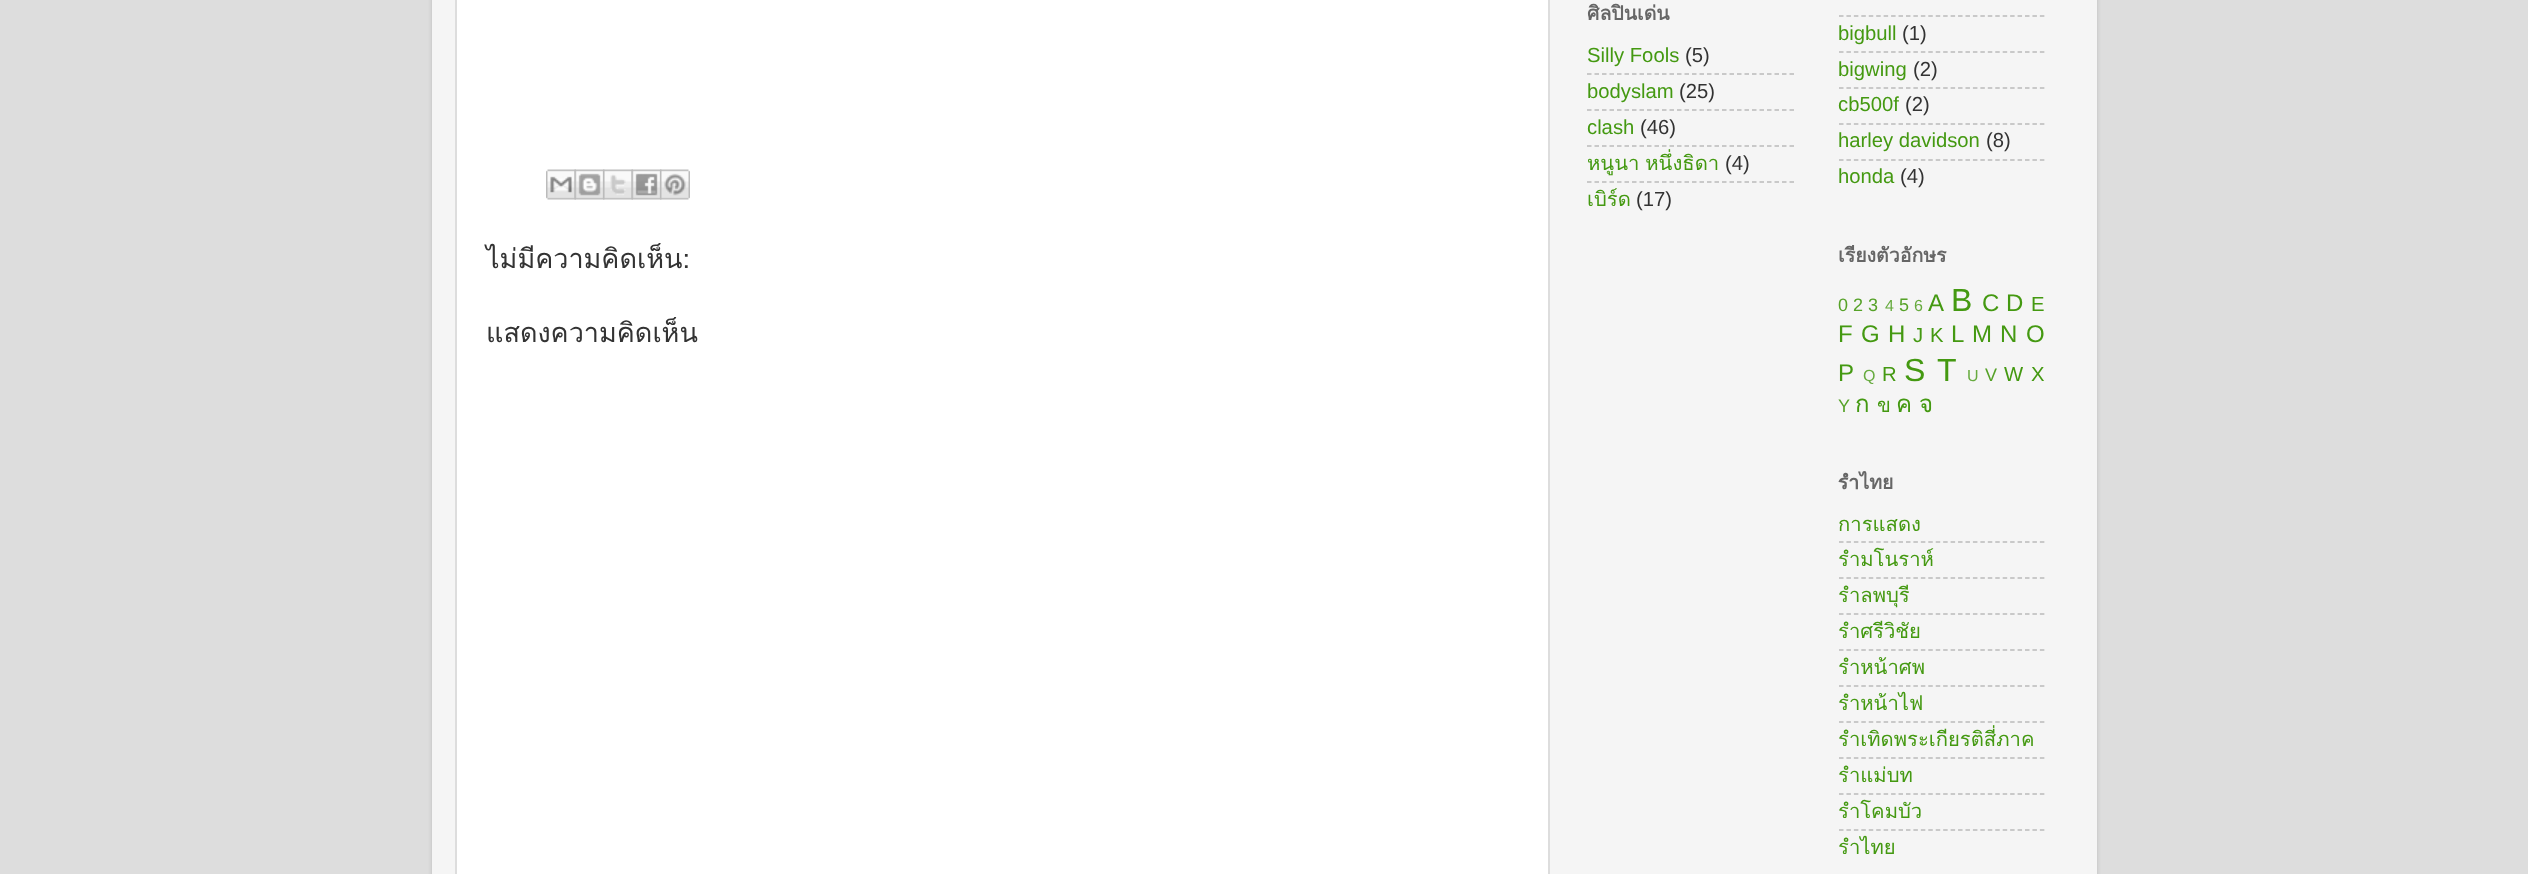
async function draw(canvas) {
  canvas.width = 2528;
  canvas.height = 874;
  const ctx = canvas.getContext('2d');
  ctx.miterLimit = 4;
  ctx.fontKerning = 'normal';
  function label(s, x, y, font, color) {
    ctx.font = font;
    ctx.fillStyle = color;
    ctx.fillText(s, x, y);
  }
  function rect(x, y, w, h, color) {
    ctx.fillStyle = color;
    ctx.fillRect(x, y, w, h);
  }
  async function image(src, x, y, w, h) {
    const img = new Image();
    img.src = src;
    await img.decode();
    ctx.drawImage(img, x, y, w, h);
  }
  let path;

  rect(0, 0, 2528, 874, '#ddd');
  ctx.fillStyle = '#00000026';
  ctx.filter = 'blur(2px)';
  ctx.beginPath();
  ctx.roundRect(432, -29, 1665, 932, 23);
  ctx.fill();
  ctx.filter = 'none';
  rect(432, 0, 1665, 874, '#f5f5f5');
  ctx.fillStyle = '#fff';
  ctx.beginPath();
  ctx.rect(456, -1, 1093, 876);
  ctx.fill();
  ctx.strokeStyle = '#ddd';
  ctx.lineWidth = 2;
  ctx.stroke();
  await image('assets/img1.png', 546, 169, 30, 31);
  await image('assets/img2.png', 574, 169, 31, 31);
  await image('assets/img3.png', 603, 169, 30, 31);
  await image('assets/img4.png', 631, 169, 31, 31);
  await image('assets/img5.png', 660, 169, 30, 31);
  label('ไม่มีความคิดเห็น:', 486, 268, '27px Loma', '#333');
  label('แสดงความคิดเห็น', 486, 342, '27px Loma', '#333');
  label('ศิลปินเด่น', 1587, 20, 'bold 19.5px Loma', '#666');
  label('Silly Fools', 1587, 62, '20.25px Liberation Sans', '#491');
  label('(5)', 1685, 62, '20.25px Liberation Sans', '#333');
  path = new Path2D('M1587 74H1794');
  ctx.strokeStyle = '#bbb';
  ctx.lineWidth = 1.5;
  ctx.setLineDash([4.5, 3]);
  ctx.stroke(path);
  label('bodyslam', 1587, 98, '20.25px Liberation Sans', '#491');
  label('(25)', 1679, 98, '20.25px Liberation Sans', '#333');
  path = new Path2D('M1587 110H1794');
  ctx.stroke(path);
  label('clash', 1587, 134, '20.25px Liberation Sans', '#491');
  label('(46)', 1640, 134, '20.25px Liberation Sans', '#333');
  path = new Path2D('M1587 146H1794');
  ctx.stroke(path);
  ctx.wordSpacing = '-1px';
  label('หนูนา หนึ่งธิดา', 1587, 170, '20.25px Loma', '#491');
  ctx.wordSpacing = '0px';
  label('(4)', 1725, 170, '20.25px Liberation Sans', '#333');
  path = new Path2D('M1587 182H1794');
  ctx.stroke(path);
  label('เบิร์ด', 1587, 206, '20.25px Loma', '#491');
  label('(17)', 1636, 206, '20.25px Liberation Sans', '#333');
  path = new Path2D('M1839 16H2044.5');
  ctx.setLineDash([4.5, 2.94]);
  ctx.stroke(path);
  label('bigbull', 1838, 40, '20.25px Liberation Sans', '#491');
  label('(1)', 1902, 40, '20.25px Liberation Sans', '#333');
  path = new Path2D('M1839 52H2044.5');
  ctx.stroke(path);
  label('bigwing', 1838, 76, '20.25px Liberation Sans', '#491');
  label('(2)', 1913, 76, '20.25px Liberation Sans', '#333');
  path = new Path2D('M1839 88H2044.5');
  ctx.stroke(path);
  label('cb500f', 1838, 111, '20.25px Liberation Sans', '#491');
  label('(2)', 1905, 111, '20.25px Liberation Sans', '#333');
  path = new Path2D('M1839 124H2044.5');
  ctx.stroke(path);
  label('harley davidson', 1838, 147, '20.25px Liberation Sans', '#491');
  label('(8)', 1986, 147, '20.25px Liberation Sans', '#333');
  path = new Path2D('M1839 160H2044.5');
  ctx.stroke(path);
  label('honda', 1838, 183, '20.25px Liberation Sans', '#491');
  label('(4)', 1900, 183, '20.25px Liberation Sans', '#333');
  label('เรียงตัวอักษร', 1838, 262, 'bold 19.5px Loma', '#666');
  label('0 2 3', 1838, 311, '18px Liberation Sans', '#56a228');
  label('4', 1885, 311, '16px Liberation Sans', '#67ab3f');
  label('5', 1899, 311, '18px Liberation Sans', '#56a228');
  label('6', 1914, 311, '16px Liberation Sans', '#67ab3f');
  label('A', 1928, 311, '24px Liberation Sans', '#491');
  label('B', 1951, 311, '32px Liberation Sans', '#491');
  label('C D', 1982, 311, '24px Liberation Sans', '#491');
  label('E', 2031, 311, '20.25px Liberation Sans', '#491');
  label('F', 1838, 342, '24px Liberation Sans', '#491');
  label('G', 1861, 342, '24px Liberation Sans', '#491');
  label('H', 1888, 342, '24px Liberation Sans', '#491');
  label('J', 1913, 342, '20.25px Liberation Sans', '#491');
  label('K', 1930, 342, '20.25px Liberation Sans', '#491');
  label('L', 1951, 342, '24px Liberation Sans', '#491');
  label('M', 1972, 342, '24px Liberation Sans', '#491');
  label('N', 2000, 342, '24px Liberation Sans', '#491');
  label('O', 2026, 342, '24px Liberation Sans', '#491');
  label('P', 1838, 381, '24px Liberation Sans', '#491');
  label('Q', 1863, 381, '16px Liberation Sans', '#67ab3f');
  label('R', 1882, 381, '20.25px Liberation Sans', '#491');
  label('S', 1904, 381, '32px Liberation Sans', '#491');
  label('T', 1937, 381, '32px Liberation Sans', '#491');
  label('U', 1967, 381, '16px Liberation Sans', '#67ab3f');
  label('V', 1985, 381, '18px Liberation Sans', '#56a228');
  label('W', 2004, 381, '20.25px Liberation Sans', '#491');
  label('X', 2031, 381, '20.25px Liberation Sans', '#491');
  label('Y', 1838, 412, '18px Liberation Sans', '#56a228');
  label('ก', 1855, 412, '24px Loma', '#491');
  label('ข', 1877, 412, '20.25px Loma', '#491');
  label('ค', 1896, 412, '24px Loma', '#491');
  label('จ', 1919, 412, '24px Loma', '#491');
  label('รำไทย', 1838, 489, 'bold 19.5px Loma', '#666');
  label('การแสดง', 1838, 531, '20.25px Loma', '#491');
  path = new Path2D('M1839 542H2044.5');
  ctx.stroke(path);
  label('รำมโนราห์', 1838, 566, '20.25px Loma', '#491');
  path = new Path2D('M1839 578H2044.5');
  ctx.stroke(path);
  label('รำลพบุรี', 1838, 602, '20.25px Loma', '#491');
  path = new Path2D('M1839 614H2044.5');
  ctx.stroke(path);
  label('รำศรีวิชัย', 1838, 638, '20.25px Loma', '#491');
  path = new Path2D('M1839 650H2044.5');
  ctx.stroke(path);
  label('รำหน้าศพ', 1838, 674, '20.25px Loma', '#491');
  path = new Path2D('M1839 686H2044.5');
  ctx.stroke(path);
  label('รำหน้าไฟ', 1838, 710, '20.25px Loma', '#491');
  path = new Path2D('M1839 722H2044.5');
  ctx.stroke(path);
  label('รำเทิดพระเกียรติสี่ภาค', 1838, 746, '20.25px Loma', '#491');
  path = new Path2D('M1839 758H2044.5');
  ctx.stroke(path);
  label('รำแม่บท', 1838, 782, '20.25px Loma', '#491');
  path = new Path2D('M1839 794H2044.5');
  ctx.stroke(path);
  label('รำโคมบัว', 1838, 818, '20.25px Loma', '#491');
  path = new Path2D('M1839 830H2044.5');
  ctx.stroke(path);
  label('รำไทย', 1838, 854, '20.25px Loma', '#491');
}

draw(document.querySelector('canvas'));
